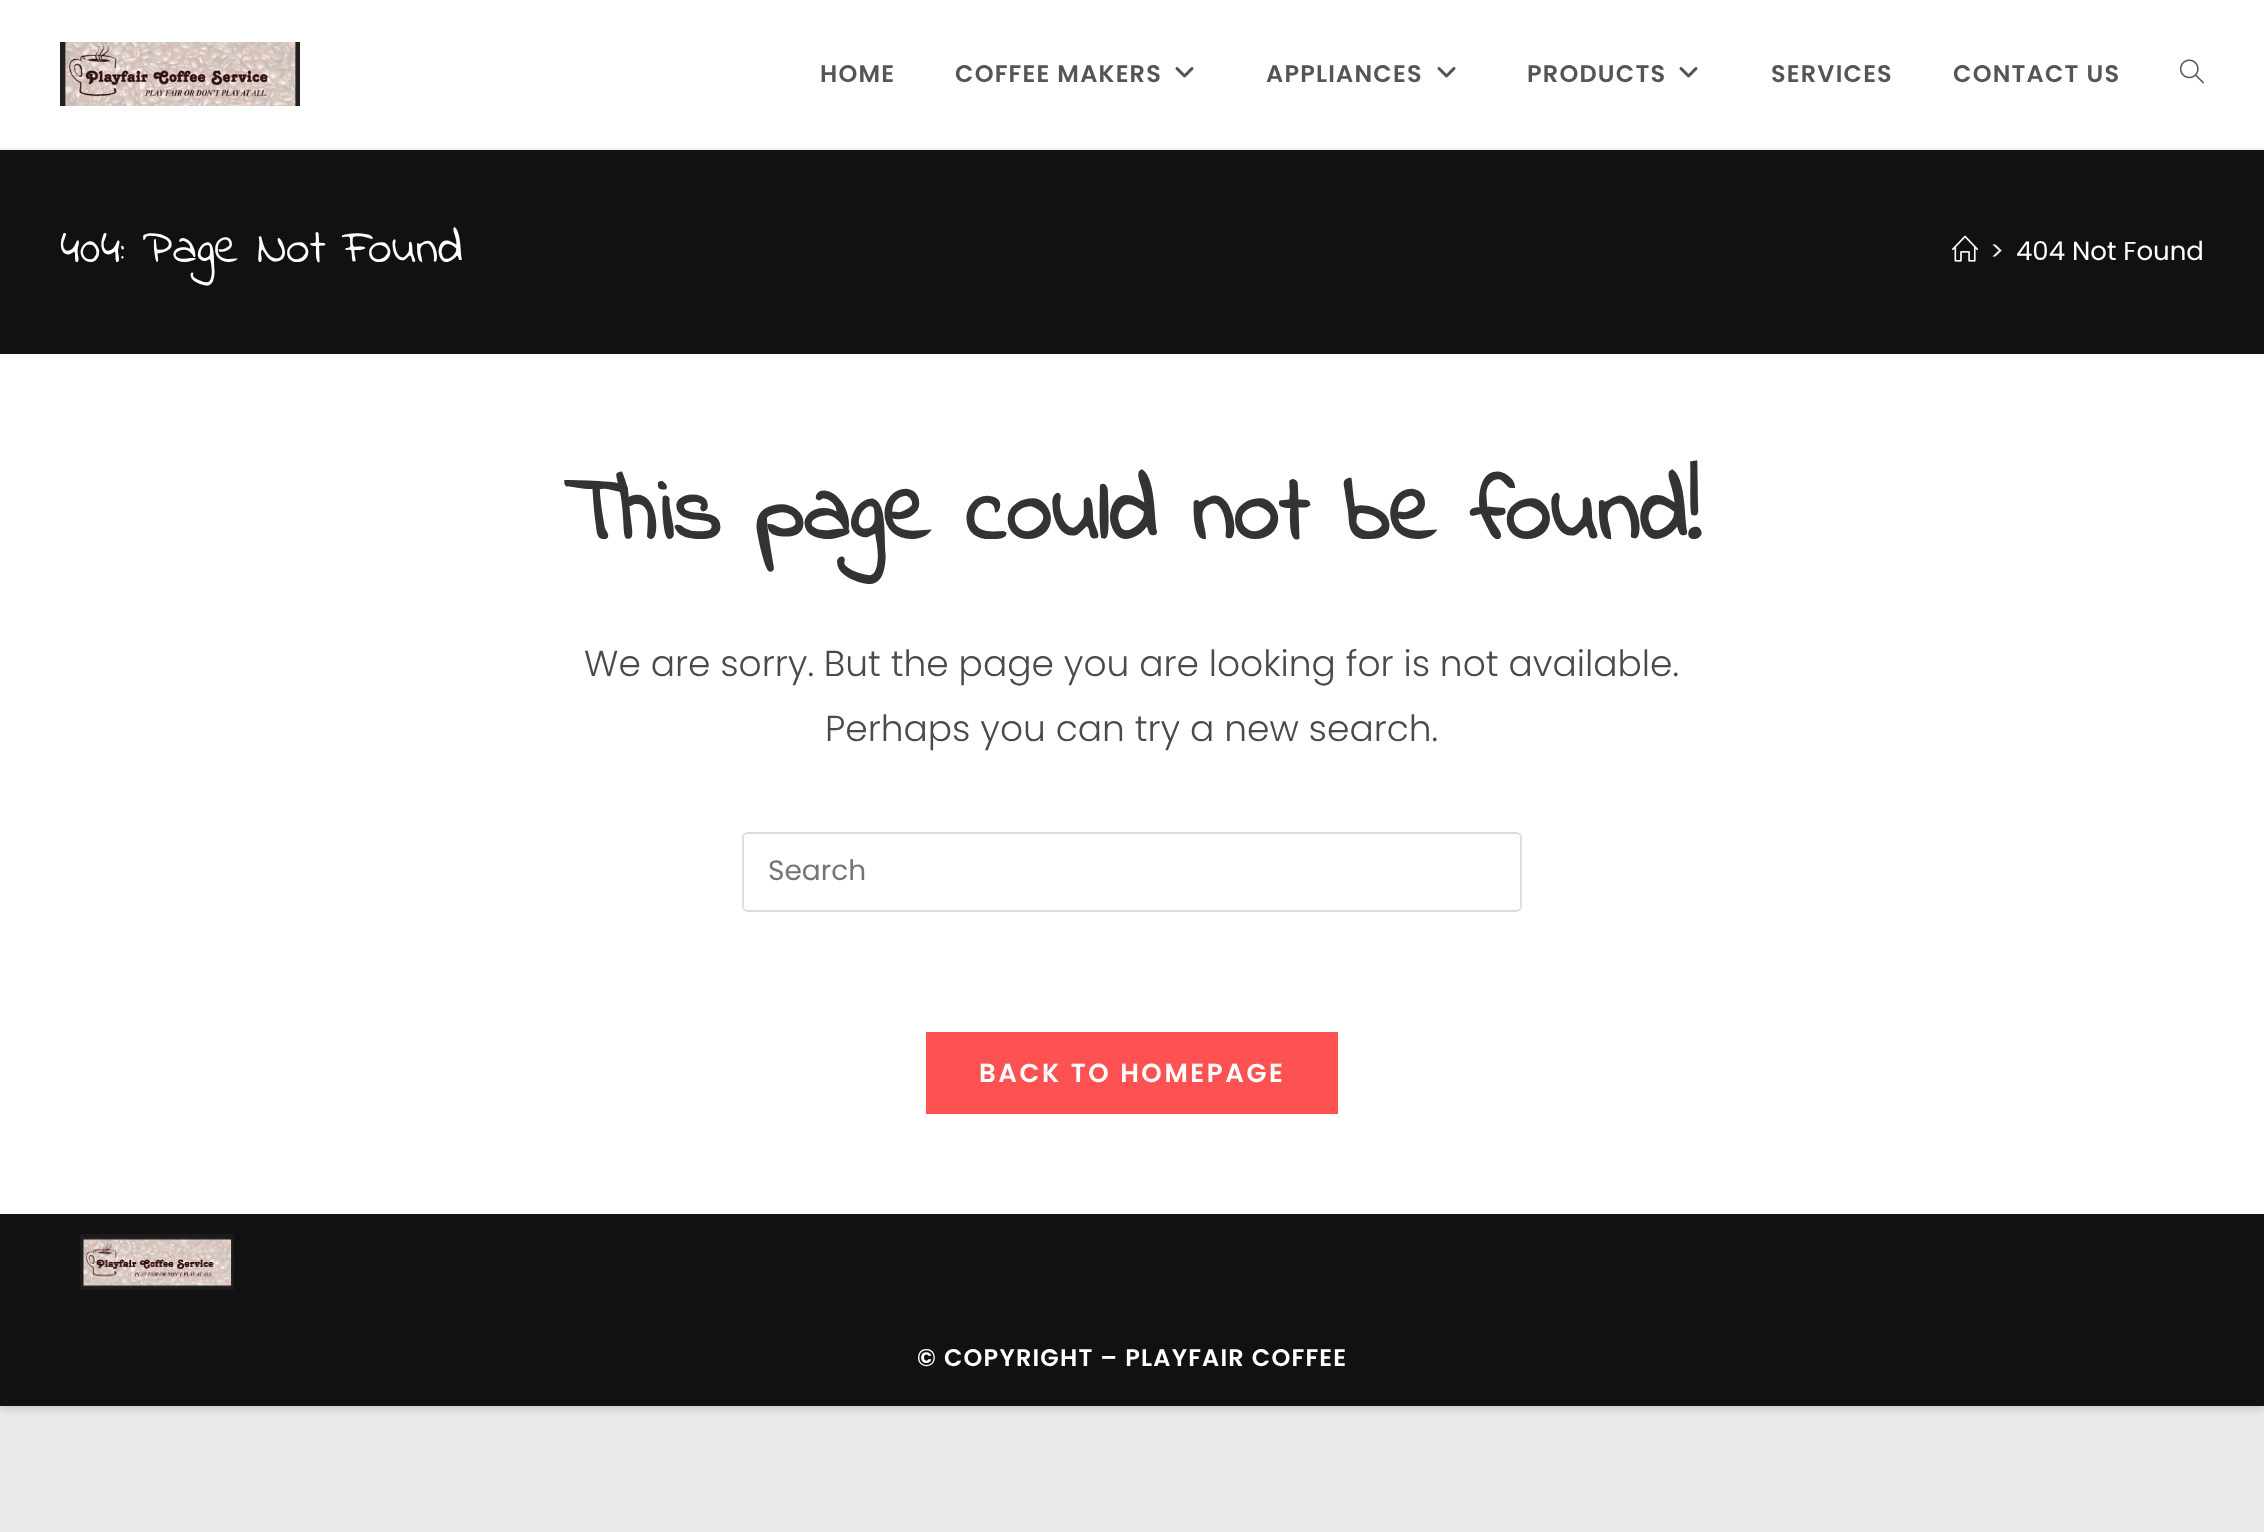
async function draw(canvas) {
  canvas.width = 2264;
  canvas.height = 1532;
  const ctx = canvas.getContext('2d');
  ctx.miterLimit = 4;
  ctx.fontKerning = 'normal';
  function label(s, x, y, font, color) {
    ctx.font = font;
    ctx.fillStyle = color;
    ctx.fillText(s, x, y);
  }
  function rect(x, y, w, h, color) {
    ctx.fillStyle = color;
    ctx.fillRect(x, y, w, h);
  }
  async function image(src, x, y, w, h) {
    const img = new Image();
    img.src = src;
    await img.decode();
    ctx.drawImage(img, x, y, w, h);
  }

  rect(0, 0, 2264, 1532, '#e9e9e9');
  ctx.fillStyle = '#00000026';
  ctx.filter = 'blur(4px)';
  ctx.beginPath();
  ctx.rect(0, 2, 2264, 1406);
  ctx.fill();
  ctx.filter = 'none';
  rect(0, 0, 2264, 1214, '#fff');
  rect(0, 148, 2264, 2, '#f1f1f1');
  await image('assets/img1.png', 60, 42, 240, 64);
  ctx.letterSpacing = '1.2px';
  label('HOME', 820, 82, '600 24px Poppins', '#555');
  label('COFFEE MAKERS', 955, 82, '600 24px Poppins', '#555');
  await image('assets/img2.png', 1175, 67, 19, 11);
  label('APPLIANCES', 1266, 82, '600 24px Poppins', '#555');
  await image('assets/img2.png', 1437, 67, 19, 11);
  label('PRODUCTS', 1527, 82, '600 24px Poppins', '#555');
  await image('assets/img2.png', 1679, 67, 19, 11);
  label('SERVICES', 1771, 82, '600 24px Poppins', '#555');
  label('CONTACT US', 1953, 82, '600 24px Poppins', '#555');
  await image('assets/img3.png', 2179, 59, 25, 25);
  rect(0, 150, 2264, 204, '#111');
  ctx.letterSpacing = '0px';
  label('404: Page Not Found', 60, 262, '48px Indie Flower', '#fff');
  await image('assets/img4.png', 1952, 235, 26, 27);
  label('>', 1990, 260, '26px Poppins', '#e8e8e8');
  label('404 Not Found', 2016, 260, '26px Poppins', '#fff');
  label('This page could not be found!', 564, 539, 'bold 92px Indie Flower', '#333');
  label('We are sorry. But the page you are looking for is not available.', 584, 676, '300 36px Poppins', '#4a4a4a');
  label('Perhaps you can try a new search.', 825, 741, '300 36px Poppins', '#4a4a4a');
  ctx.beginPath();
  ctx.roundRect(743, 833, 778, 78, 5);
  ctx.strokeStyle = '#ddd';
  ctx.lineWidth = 2;
  ctx.stroke();
  label('Search', 768, 880, '28px Poppins', '#757575');
  rect(926, 1032, 412, 82, '#fe5252');
  ctx.letterSpacing = '2.6px';
  label('BACK TO HOMEPAGE', 979, 1082, '600 26px Poppins', '#fff');
  rect(0, 1214, 2264, 192, '#111');
  await image('assets/img5.png', 80, 1234, 154, 56);
  ctx.letterSpacing = '1.2px';
  label('© COPYRIGHT – PLAYFAIR COFFEE', 917, 1366, '600 24px Poppins', '#fff');
}

draw(document.querySelector('canvas'));
